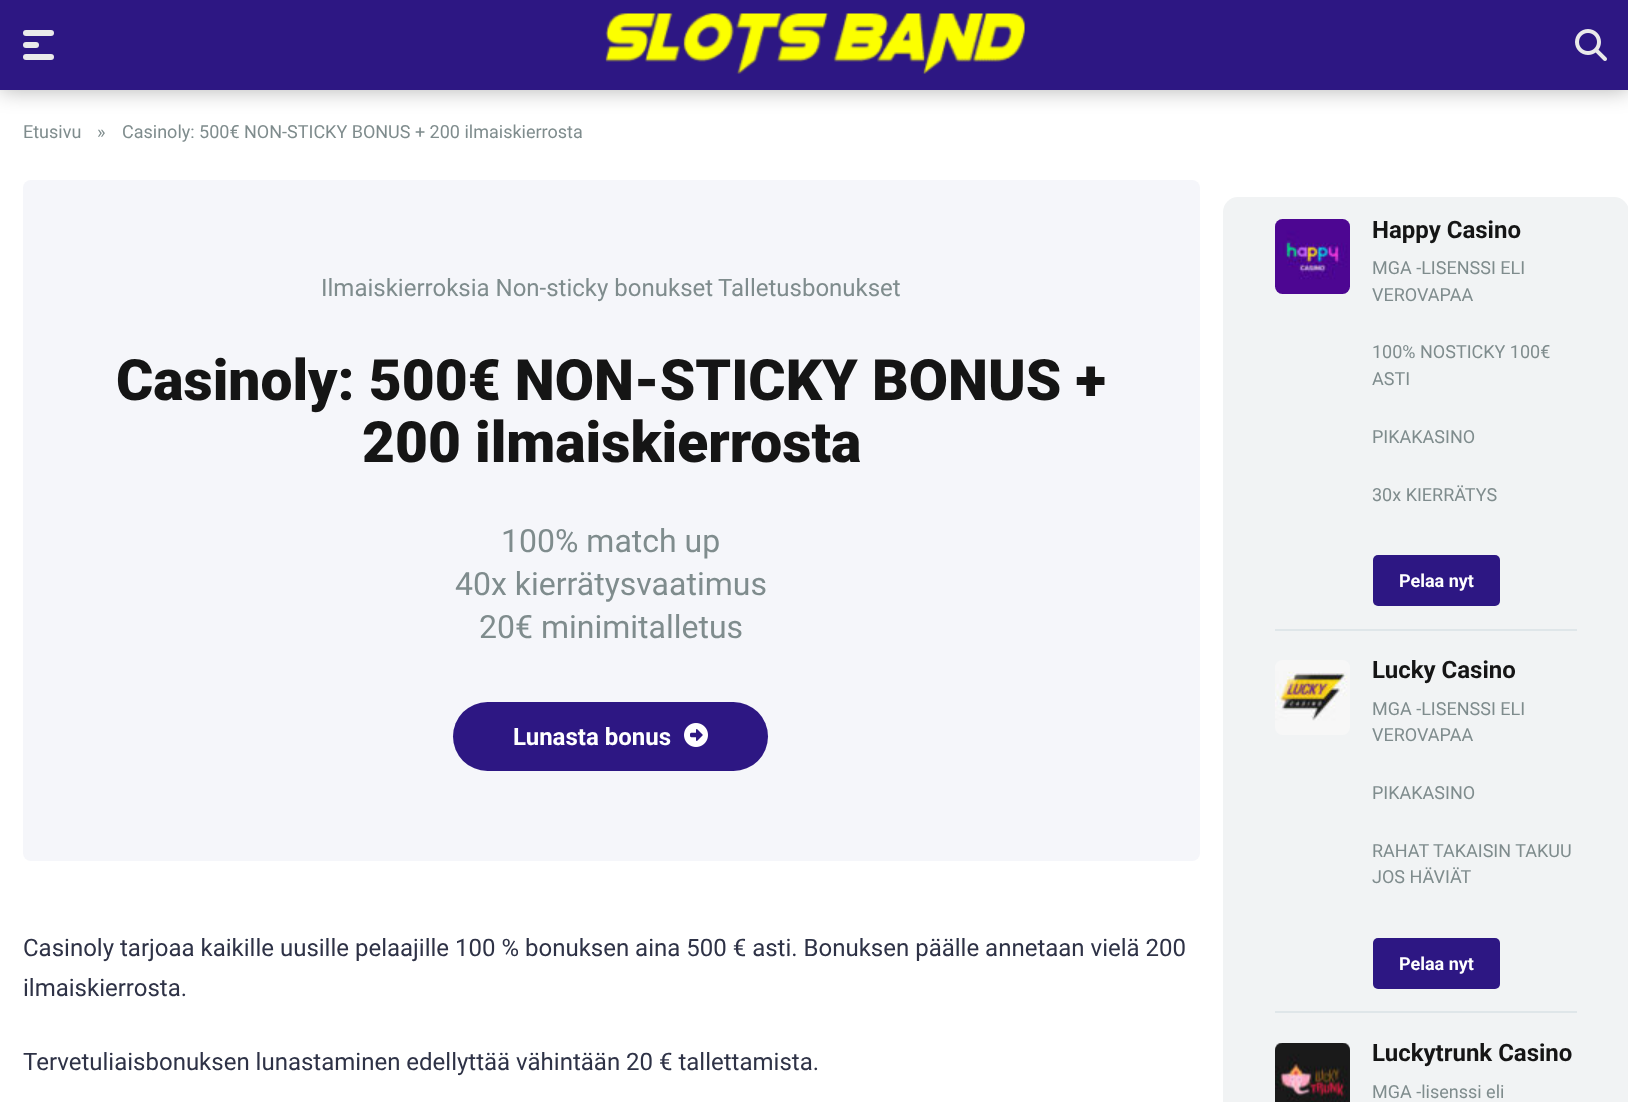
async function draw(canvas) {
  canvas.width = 1628;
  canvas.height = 1102;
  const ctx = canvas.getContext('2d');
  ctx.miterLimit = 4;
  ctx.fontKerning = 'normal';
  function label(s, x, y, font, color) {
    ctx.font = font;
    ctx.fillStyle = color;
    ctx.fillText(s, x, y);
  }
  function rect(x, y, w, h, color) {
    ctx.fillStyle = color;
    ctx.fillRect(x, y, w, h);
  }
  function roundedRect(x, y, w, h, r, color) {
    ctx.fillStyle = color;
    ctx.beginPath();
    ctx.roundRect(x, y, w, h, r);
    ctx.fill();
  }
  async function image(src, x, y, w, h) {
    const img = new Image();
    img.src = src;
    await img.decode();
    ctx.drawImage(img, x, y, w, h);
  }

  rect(0, 0, 1628, 1102, '#fff');
  ctx.fillStyle = '#0000004d';
  ctx.filter = 'blur(11px)';
  ctx.beginPath();
  ctx.rect(0, 0, 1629, 90);
  ctx.fill();
  ctx.filter = 'none';
  rect(0, 0, 1628, 90, '#2d1783');
  roundedRect(23, 30, 31, 6, 3, '#eaeaea');
  roundedRect(23, 42, 16, 6, 3, '#eaeaea');
  roundedRect(23, 54, 31, 6, 3, '#eaeaea');
  await image('assets/img1.png', 605, 13, 420, 61);
  await image('assets/img2.png', 1575, 29, 32, 32);
  label('Etusivu', 23, 138, '18px Roboto', '#7f8c8d');
  label('»', 97, 138, '18px Roboto', '#7f8c8d');
  label('Casinoly: 500€ NON-STICKY BONUS + 200 ilmaiskierrosta', 122, 138, '18px Roboto', '#7f8c8d');
  roundedRect(23, 180, 1177, 681, 8, '#f5f6fa');
  label('Ilmaiskierroksia Non-sticky bonukset', 321, 296, '24px Roboto', '#7f8c8d');
  label('Talletusbonukset', 718, 296, '24px Roboto', '#7f8c8d');
  label('Casinoly: 500€ NON-STICKY BONUS +', 116, 400, '900 56.9px Roboto', '#151515');
  label('200 ilmaiskierrosta', 362, 462, '900 56.9px Roboto', '#151515');
  label('100% match up', 501, 552, '32px Roboto', '#7f8c8d');
  label('40x kierrätysvaatimus', 455, 595, '32px Roboto', '#7f8c8d');
  label('20€ minimitalletus', 479, 638, '32px Roboto', '#7f8c8d');
  roundedRect(453, 702, 315, 69, 34.5, '#2d1783');
  label('Lunasta bonus', 513, 745, 'bold 24px Roboto', '#fff');
  await image('assets/img3.png', 684, 723, 24, 24);
  label('Casinoly tarjoaa kaikille uusille pelaajille 100 % bonuksen aina 500 € asti. Bonuksen päälle annetaan vielä 200', 23, 956, '24px Roboto', '#2e3246');
  label('ilmaiskierrosta.', 23, 996, '24px Roboto', '#2e3246');
  label('Tervetuliaisbonuksen lunastaminen edellyttää vähintään 20 € tallettamista.', 23, 1070, '24px Roboto', '#2e3246');
  roundedRect(1223, 197, 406, 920, 15, '#f1f3f4');
  rect(1275, 629, 302, 2, '#dfe6e9');
  await image('assets/img4.png', 1275, 219, 75, 75);
  label('Happy Casino', 1372, 238, 'bold 24px Roboto', '#151515');
  label('MGA -LISENSSI ELI', 1372, 274, '18px Roboto', '#7f8c8d');
  label('VEROVAPAA', 1372, 301, '18px Roboto', '#7f8c8d');
  label('100% NOSTICKY 100€', 1372, 358, '18px Roboto', '#7f8c8d');
  label('ASTI', 1372, 385, '18px Roboto', '#7f8c8d');
  label('PIKAKASINO', 1372, 443, '18px Roboto', '#7f8c8d');
  label('30x KIERRÄTYS', 1372, 501, '18px Roboto', '#7f8c8d');
  roundedRect(1373, 555, 127, 51, 5, '#2d1783');
  label('Pelaa nyt', 1399, 587, 'bold 18px Roboto', '#fff');
  rect(1275, 1011, 302, 2, '#dfe6e9');
  await image('assets/img5.png', 1275, 660, 75, 75);
  label('Lucky Casino', 1372, 678, 'bold 24px Roboto', '#151515');
  label('MGA -LISENSSI ELI', 1372, 715, '18px Roboto', '#7f8c8d');
  label('VEROVAPAA', 1372, 741, '18px Roboto', '#7f8c8d');
  label('PIKAKASINO', 1372, 799, '18px Roboto', '#7f8c8d');
  label('RAHAT TAKAISIN TAKUU', 1372, 857, '18px Roboto', '#7f8c8d');
  label('JOS HÄVIÄT', 1372, 883, '18px Roboto', '#7f8c8d');
  roundedRect(1373, 938, 127, 51, 5, '#2d1783');
  label('Pelaa nyt', 1399, 970, 'bold 18px Roboto', '#fff');
  await image('assets/img6.png', 1275, 1043, 75, 59);
  label('Luckytrunk Casino', 1372, 1061, 'bold 24px Roboto', '#151515');
  label('MGA -lisenssi eli', 1372, 1098, '18px Roboto', '#7f8c8d');
}

draw(document.querySelector('canvas'));
